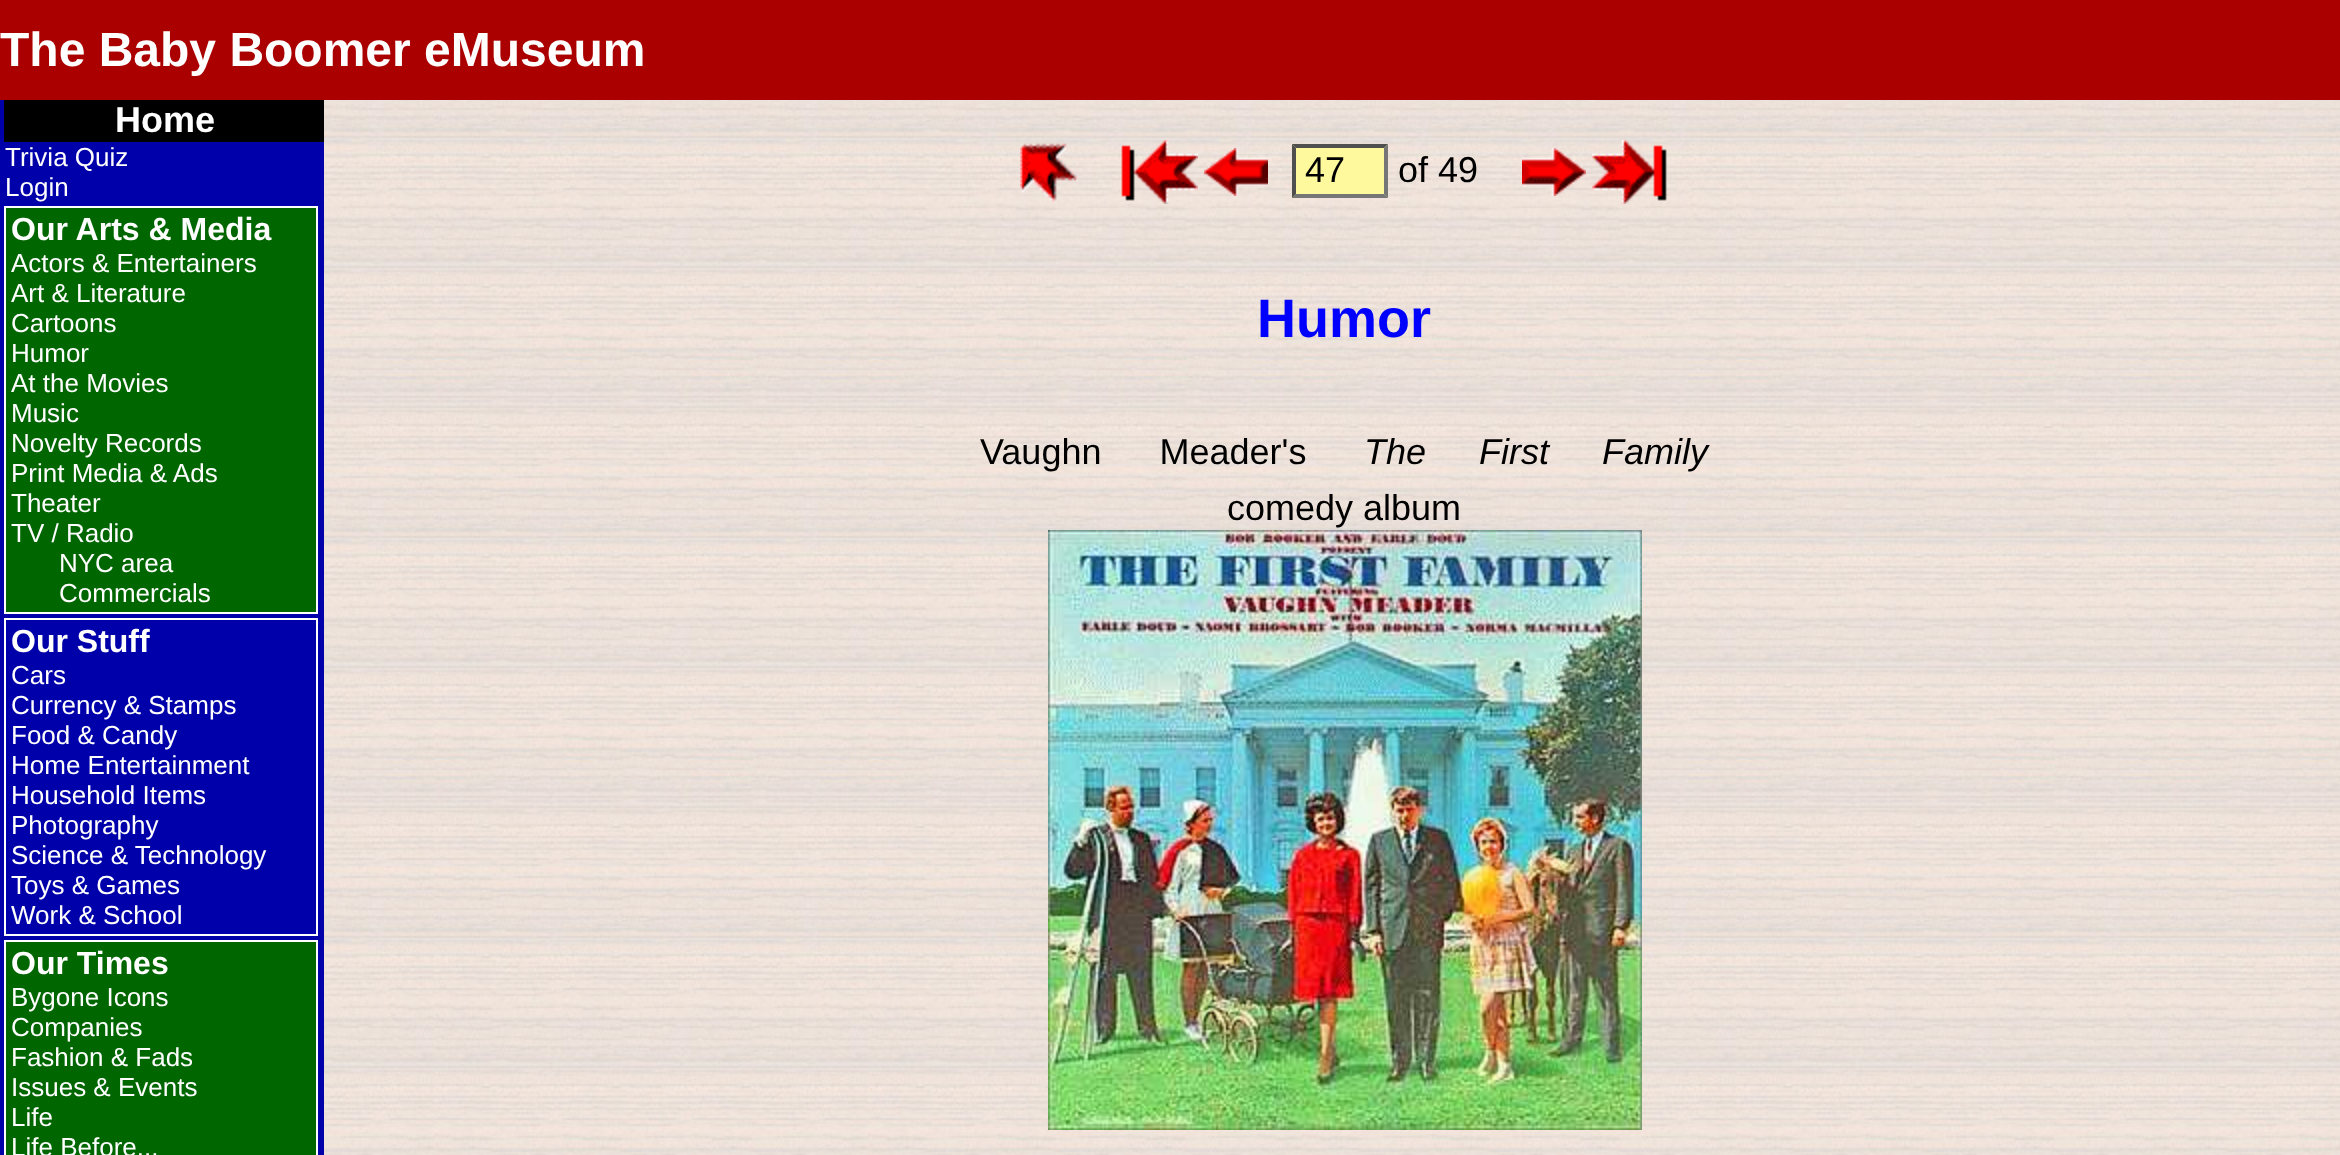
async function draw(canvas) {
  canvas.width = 2340;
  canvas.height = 1155;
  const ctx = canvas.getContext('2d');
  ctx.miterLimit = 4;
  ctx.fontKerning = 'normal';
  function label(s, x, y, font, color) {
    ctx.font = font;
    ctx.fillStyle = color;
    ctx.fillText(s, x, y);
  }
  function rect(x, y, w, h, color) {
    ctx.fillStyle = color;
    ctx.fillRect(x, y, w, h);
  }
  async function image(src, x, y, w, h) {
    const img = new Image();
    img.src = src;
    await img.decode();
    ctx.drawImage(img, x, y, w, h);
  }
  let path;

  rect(0, 0, 2340, 1155, '#fff');
  await image('assets/img1.png', 324, 100, 2016, 1055);
  rect(0, 0, 2340, 100, '#a00');
  label('The Baby Boomer eMuseum', 0, 66, 'bold 48px Liberation Sans', '#fff');
  rect(0, 100, 324, 1055, '#00a');
  rect(4, 100, 320, 42, '#000');
  label('Home', 115, 132, 'bold 36px Liberation Sans', '#fff');
  label('Trivia Quiz', 5, 166, '26px Liberation Sans', '#fff');
  label('Login', 5, 196, '26px Liberation Sans', '#fff');
  ctx.fillStyle = '#060';
  ctx.beginPath();
  ctx.rect(5, 207, 312, 406);
  ctx.fill();
  ctx.strokeStyle = '#fff';
  ctx.lineWidth = 2;
  ctx.stroke();
  label('Our Arts & Media', 11, 240, 'bold 32px Liberation Sans', '#fff');
  label('Actors & Entertainers', 11, 272, '26px Liberation Sans', '#fff');
  label('Art & Literature', 11, 302, '26px Liberation Sans', '#fff');
  label('Cartoons', 11, 332, '26px Liberation Sans', '#fff');
  label('Humor', 11, 362, '26px Liberation Sans', '#fff');
  label('At the Movies', 11, 392, '26px Liberation Sans', '#fff');
  label('Music', 11, 422, '26px Liberation Sans', '#fff');
  label('Novelty Records', 11, 452, '26px Liberation Sans', '#fff');
  label('Print Media & Ads', 11, 482, '26px Liberation Sans', '#fff');
  label('Theater', 11, 512, '26px Liberation Sans', '#fff');
  label('TV / Radio', 11, 542, '26px Liberation Sans', '#fff');
  label('NYC area', 59, 572, '26px Liberation Sans', '#fff');
  label('Commercials', 59, 602, '26px Liberation Sans', '#fff');
  ctx.strokeRect(5, 619, 312, 316);
  label('Our Stuff', 11, 652, 'bold 32px Liberation Sans', '#fff');
  label('Cars', 11, 684, '26px Liberation Sans', '#fff');
  label('Currency & Stamps', 11, 714, '26px Liberation Sans', '#fff');
  label('Food & Candy', 11, 744, '26px Liberation Sans', '#fff');
  label('Home Entertainment', 11, 774, '26px Liberation Sans', '#fff');
  label('Household Items', 11, 804, '26px Liberation Sans', '#fff');
  label('Photography', 11, 834, '26px Liberation Sans', '#fff');
  label('Science & Technology', 11, 864, '26px Liberation Sans', '#fff');
  label('Toys & Games', 11, 894, '26px Liberation Sans', '#fff');
  label('Work & School', 11, 924, '26px Liberation Sans', '#fff');
  ctx.fillStyle = '#060';
  ctx.beginPath();
  ctx.rect(5, 941, 312, 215);
  ctx.fill();
  ctx.stroke();
  label('Our Times', 11, 974, 'bold 32px Liberation Sans', '#fff');
  label('Bygone Icons', 11, 1006, '26px Liberation Sans', '#fff');
  label('Companies', 11, 1036, '26px Liberation Sans', '#fff');
  label('Fashion & Fads', 11, 1066, '26px Liberation Sans', '#fff');
  label('Issues & Events', 11, 1096, '26px Liberation Sans', '#fff');
  label('Life', 11, 1126, '26px Liberation Sans', '#fff');
  label('Life Before...', 11, 1156, '26px Liberation Sans', '#fff');
  await image('assets/img2.png', 1020, 143, 58, 60);
  await image('assets/img3.png', 1121, 140, 77, 64);
  await image('assets/img4.png', 1204, 148, 64, 48);
  rect(1292, 144, 96, 54, '#fff99d');
  ctx.fillStyle = '#4f4f4f';
  path = new Path2D('M1292 144H1388L1384 148H1296Z');
  ctx.fill(path);
  ctx.fillStyle = '#767676';
  path = new Path2D('M1388 144V198L1384 194V148Z');
  ctx.fill(path);
  path = new Path2D('M1388 198H1292L1296 194H1384Z');
  ctx.fill(path);
  ctx.fillStyle = '#4f4f4f';
  path = new Path2D('M1292 198V144L1296 148V194Z');
  ctx.fill(path);
  label('47', 1305, 182, '36px Liberation Sans', '#000');
  label('of 49', 1398, 182, '36px Liberation Sans', '#000');
  await image('assets/img5.png', 1522, 148, 64, 48);
  await image('assets/img6.png', 1592, 140, 75, 64);
  label('Humor', 1257, 337, 'bold 54px Liberation Sans', '#00f');
  ctx.wordSpacing = '48px';
  label('Vaughn Meader\'s', 980, 464, '36px Liberation Sans', '#000');
  ctx.wordSpacing = '43px';
  label('The First Family', 1364, 464, 'italic 36px Liberation Sans', '#000');
  ctx.wordSpacing = '0px';
  label('comedy album', 1227, 520, '36px Liberation Sans', '#000');
  await image('assets/img7.png', 1048, 530, 594, 600);
}

draw(document.querySelector('canvas'));
